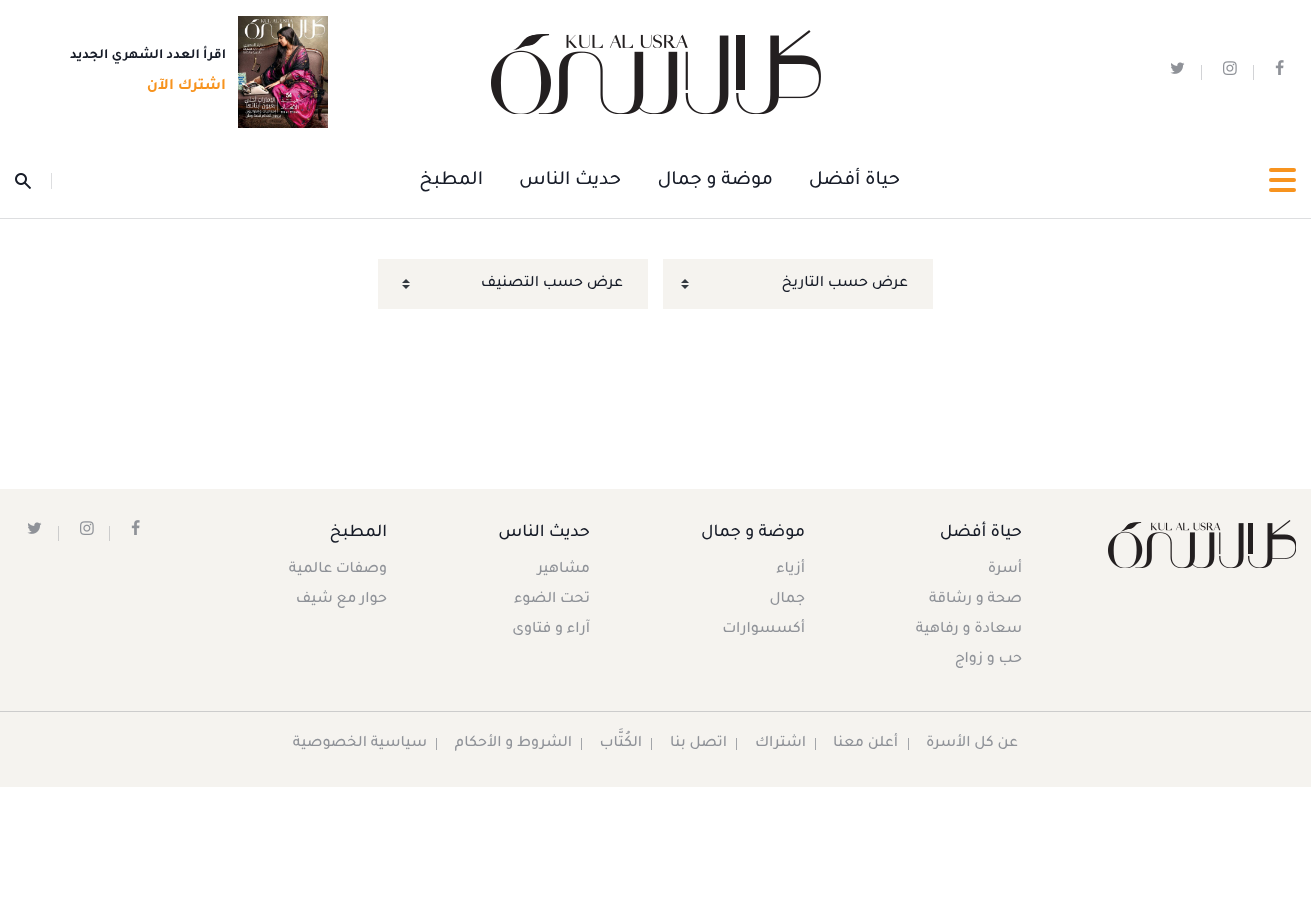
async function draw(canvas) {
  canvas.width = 1311;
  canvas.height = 907;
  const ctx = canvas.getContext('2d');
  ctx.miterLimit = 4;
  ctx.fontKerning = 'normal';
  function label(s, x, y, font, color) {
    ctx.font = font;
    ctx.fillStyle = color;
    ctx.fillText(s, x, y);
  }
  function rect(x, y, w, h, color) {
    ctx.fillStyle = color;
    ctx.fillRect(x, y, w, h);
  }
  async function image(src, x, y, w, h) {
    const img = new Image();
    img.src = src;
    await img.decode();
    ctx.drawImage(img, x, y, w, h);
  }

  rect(0, 0, 1311, 907, '#fff');
  await image('assets/img1.png', 1275, 60, 9, 15);
  rect(1253, 65, 1, 15, '#d2d3d6');
  await image('assets/img2.png', 1223, 61, 14, 14);
  rect(1201, 65, 1, 15, '#d2d3d6');
  await image('assets/img3.png', 1170, 62, 15, 12);
  await image('assets/img4.png', 491, 30, 330, 84);
  await image('assets/img5.png', 238, 16, 90, 112);
  ctx.direction = 'rtl';
  label('اقرأ العدد الشهري الجديد', 226, 58, 'bold 14px Tajawal', '#171c28');
  label('اشترك الآن', 226, 89, 'bold 16px Tajawal', '#f7931e');
  rect(0, 218, 1311, 1, '#dddee0');
  ctx.fillStyle = '#f7931e';
  ctx.beginPath();
  ctx.roundRect(1283, 168, 13, 4, [0, 2, 2, 0]);
  ctx.fill();
  ctx.beginPath();
  ctx.roundRect(1269, 168, 14, 4, [2, 0, 0, 2]);
  ctx.fill();
  ctx.beginPath();
  ctx.roundRect(1283, 178, 13, 4, [0, 2, 2, 0]);
  ctx.fill();
  ctx.beginPath();
  ctx.roundRect(1269, 178, 14, 4, [2, 0, 0, 2]);
  ctx.fill();
  ctx.beginPath();
  ctx.roundRect(1283, 188, 13, 4, [0, 2, 2, 0]);
  ctx.fill();
  ctx.beginPath();
  ctx.roundRect(1269, 188, 14, 4, [2, 0, 0, 2]);
  ctx.fill();
  label('حياة أفضل', 900, 184, '500 20px Tajawal', '#171c28');
  label('موضة و جمال', 773, 184, '500 20px Tajawal', '#171c28');
  label('حديث الناس', 621, 184, '500 20px Tajawal', '#171c28');
  label('المطبخ', 483, 184, '500 20px Tajawal', '#171c28');
  rect(51, 173, 1, 16, '#dddee0');
  await image('assets/img6.png', 15, 173, 16, 16);
  rect(663, 259, 270, 50, '#f5f3ef');
  label('عرض حسب التاريخ', 908, 286, '500 16px Tajawal', '#171c28');
  await image('assets/img7.png', 681, 279, 8, 10);
  rect(378, 259, 270, 50, '#f5f3ef');
  await image('assets/img7.png', 402, 279, 8, 10);
  label('عرض حسب التصنيف', 623, 286, '500 16px Tajawal', '#171c28');
  rect(0, 489, 1311, 298, '#f5f3ef');
  await image('assets/img8.png', 1108, 520, 188, 48);
  label('حياة أفضل', 1022, 536, '500 18px Tajawal', '#171c28');
  label('أسرة', 1022, 572, '500 16px Tajawal', '#8f9298');
  label('صحة و رشاقة', 1022, 602, '500 16px Tajawal', '#8f9298');
  label('سعادة و رفاهية', 1022, 632, '500 16px Tajawal', '#8f9298');
  label('حب و زواج', 1022, 662, '500 16px Tajawal', '#8f9298');
  label('موضة و جمال', 805, 536, '500 18px Tajawal', '#171c28');
  label('أزياء', 805, 572, '500 16px Tajawal', '#8f9298');
  label('جمال', 805, 602, '500 16px Tajawal', '#8f9298');
  label('أكسسوارات', 805, 632, '500 16px Tajawal', '#8f9298');
  label('حديث الناس', 590, 536, '500 18px Tajawal', '#171c28');
  label('مشاهير', 590, 572, '500 16px Tajawal', '#8f9298');
  label('تحت الضوء', 590, 602, '500 16px Tajawal', '#8f9298');
  label('آراء و فتاوى', 590, 632, '500 16px Tajawal', '#8f9298');
  label('المطبخ', 387, 536, '500 18px Tajawal', '#171c28');
  label('وصفات عالمية', 387, 572, '500 16px Tajawal', '#8f9298');
  label('حوار مع شيف', 387, 602, '500 16px Tajawal', '#8f9298');
  await image('assets/img9.png', 131, 520, 9, 15);
  rect(109, 526, 1, 15, '#ccc');
  await image('assets/img10.png', 80, 521, 14, 14);
  rect(58, 526, 1, 15, '#ccc');
  await image('assets/img11.png', 27, 522, 15, 12);
  rect(0, 711, 1311, 1, '#ccc');
  label('عن كل الأسرة', 1018, 746, '500 16px Tajawal', '#8f9298');
  rect(908, 738, 1, 12, '#a3a5a9');
  label('أعلن معنا', 898, 746, '500 16px Tajawal', '#8f9298');
  rect(815, 738, 1, 12, '#a3a5a9');
  label('اشتراك', 806, 746, '500 16px Tajawal', '#8f9298');
  rect(736, 738, 1, 12, '#a3a5a9');
  label('اتصل بنا', 727, 746, '500 16px Tajawal', '#8f9298');
  rect(651, 738, 1, 12, '#a3a5a9');
  label('الكُتَّاب', 642, 746, '500 16px Tajawal', '#8f9298');
  rect(581, 738, 1, 12, '#a3a5a9');
  label('الشروط و الأحكام', 572, 746, '500 16px Tajawal', '#8f9298');
  rect(436, 738, 1, 12, '#a3a5a9');
  label('سياسية الخصوصية', 427, 746, '500 16px Tajawal', '#8f9298');
}

draw(document.querySelector('canvas'));
